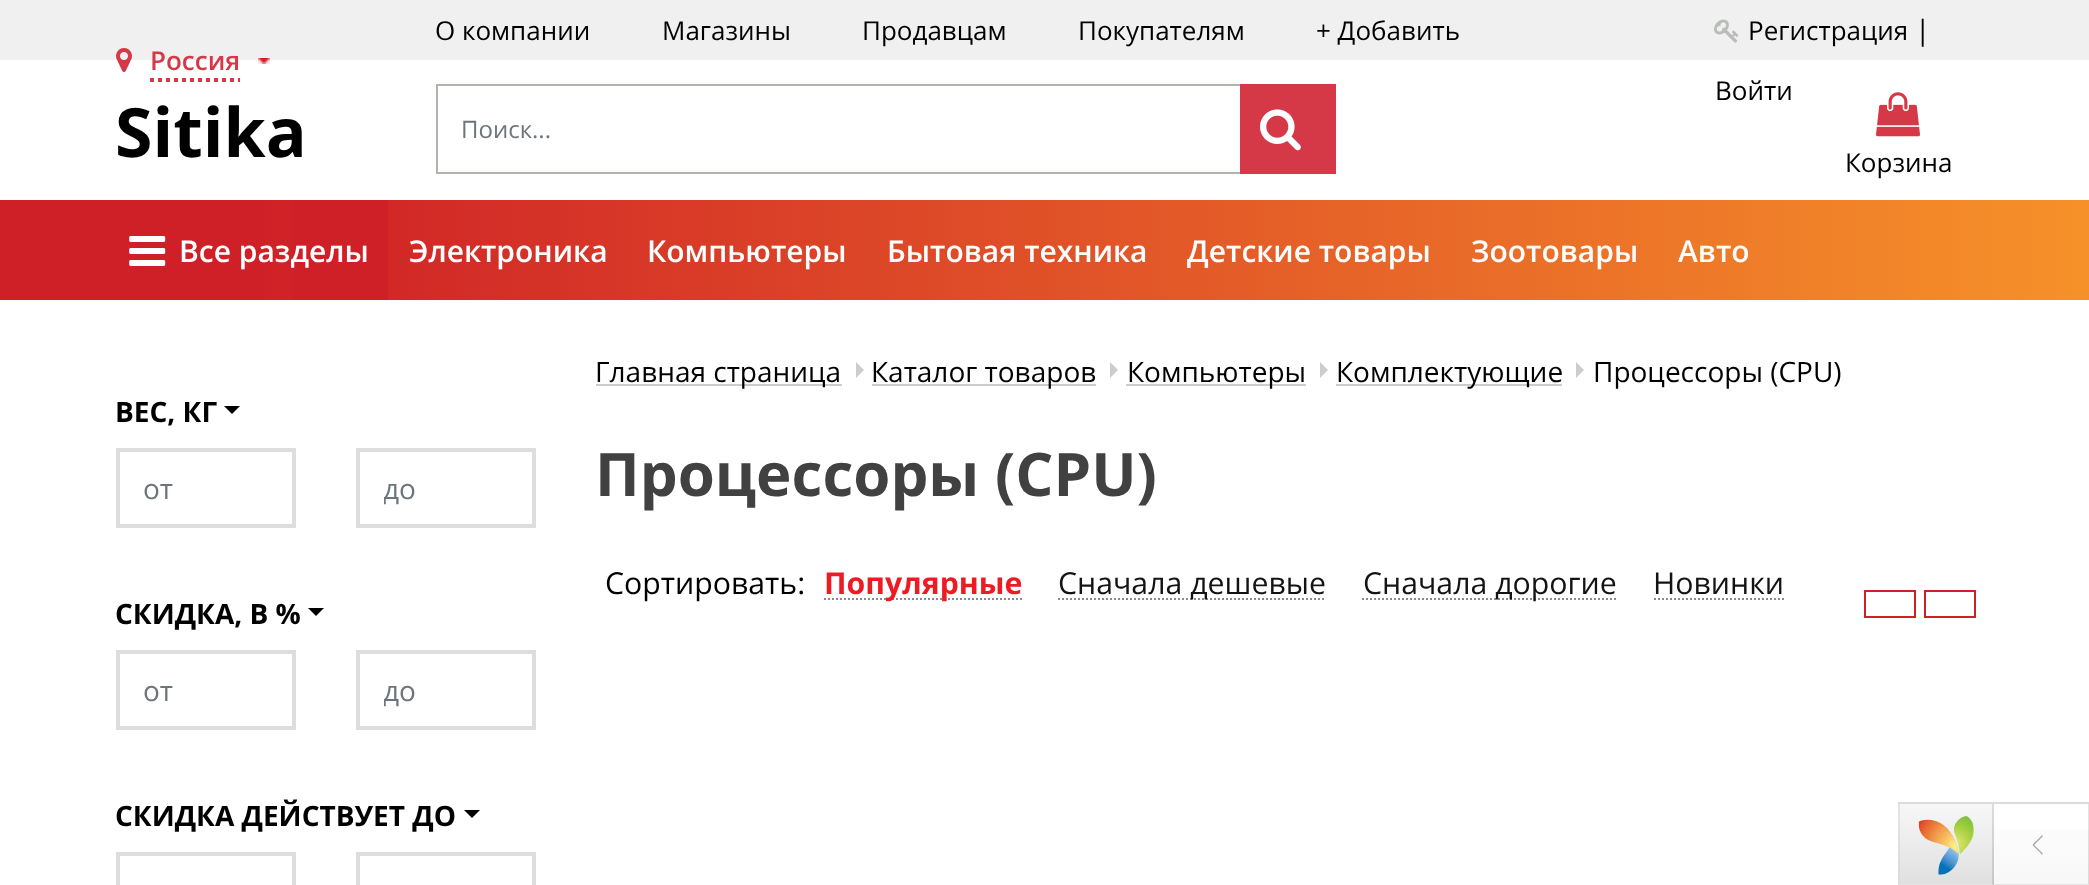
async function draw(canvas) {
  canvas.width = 2089;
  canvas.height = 885;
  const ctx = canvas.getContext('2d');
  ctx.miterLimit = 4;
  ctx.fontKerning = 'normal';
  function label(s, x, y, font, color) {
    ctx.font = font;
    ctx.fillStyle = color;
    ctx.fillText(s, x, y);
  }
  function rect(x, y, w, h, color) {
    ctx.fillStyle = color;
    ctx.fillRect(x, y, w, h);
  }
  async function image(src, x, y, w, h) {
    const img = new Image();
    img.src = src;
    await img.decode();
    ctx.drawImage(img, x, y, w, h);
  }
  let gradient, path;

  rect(0, 0, 2089, 885, '#fff');
  rect(0, 0, 2089, 60, '#f1f0f1');
  label('О компании', 435, 40, '26px Open Sans', '#000');
  label('Магазины', 662, 40, '26px Open Sans', '#000');
  label('Продавцам', 862, 40, '26px Open Sans', '#000');
  label('Покупателям', 1078, 40, '26px Open Sans', '#000');
  label('+ Добавить', 1316, 40, '26px Open Sans', '#000');
  await image('assets/img1.png', 1714, 19, 25, 24);
  label('Регистрация', 1748, 40, '26px Open Sans', '#000');
  label('|', 1915, 40, '28px Open Sans', '#000');
  label('Войти', 1715, 100, '26px Open Sans', '#000');
  await image('assets/img2.png', 116, 48, 16, 24);
  label('Россия', 150, 70, '600 26px Open Sans', '#d53947');
  path = new Path2D('M150 80H240');
  ctx.strokeStyle = '#d53947';
  ctx.lineWidth = 4;
  ctx.setLineDash([4, 4]);
  ctx.stroke(path);
  await image('assets/img3.png', 258, 58, 12, 6);
  label('Sitika', 115, 157, 'bold 68px Open Sans', '#000');
  ctx.strokeStyle = '#b2b4b0';
  ctx.lineWidth = 2;
  ctx.setLineDash([]);
  ctx.strokeRect(437, 85, 898, 88);
  label('Поиск...', 461, 138, '24px Open Sans', '#6c757d');
  rect(1240, 84, 96, 90, '#d53947');
  await image('assets/img4.png', 1260, 109, 41, 42);
  await image('assets/img5.png', 1876, 92, 44, 45);
  label('Корзина', 1845, 172, '26px Open Sans', '#000');
  gradient = ctx.createLinearGradient(0, 250, 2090, 250);
  gradient.addColorStop(0.12, '#cf2027');
  gradient.addColorStop(1, '#f69129');
  ctx.fillStyle = gradient;
  ctx.fillRect(0, 200, 2089, 100);
  rect(292, 200, 96, 100, '#cf2027');
  await image('assets/img6.png', 129, 236, 37, 30);
  label('Все разделы', 179, 262, '600 30px Open Sans', '#fff');
  label('Электроника', 409, 262, '600 30px Open Sans', '#fff');
  label('Компьютеры', 647, 262, '600 30px Open Sans', '#fff');
  label('Бытовая техника', 887, 262, '600 30px Open Sans', '#fff');
  label('Детские товары', 1187, 262, '600 30px Open Sans', '#fff');
  label('Зоотовары', 1471, 262, '600 30px Open Sans', '#fff');
  label('Авто', 1678, 262, '600 30px Open Sans', '#fff');
  label('ВЕС, КГ', 115, 422, 'bold 28px Open Sans', '#000');
  path = new Path2D('M224 406H240L232 414Z');
  ctx.fill(path);
  ctx.strokeStyle = '#ddd';
  ctx.lineWidth = 4;
  ctx.strokeRect(118, 450, 176, 76);
  label('от', 143, 499, '28px Open Sans', '#6c757d');
  ctx.strokeRect(358, 450, 176, 76);
  ctx.save();
  ctx.beginPath();
  ctx.rect(384, 470, 124, 38);
  ctx.clip();
  label('до', 383, 499, '28px Open Sans', '#6c757d');
  ctx.restore();
  label('СКИДКА, В %', 115, 624, 'bold 28px Open Sans', '#000');
  path = new Path2D('M308 608H324L316 616Z');
  ctx.fill(path);
  ctx.strokeRect(118, 652, 176, 76);
  label('от', 143, 701, '28px Open Sans', '#6c757d');
  ctx.strokeRect(358, 652, 176, 76);
  ctx.save();
  ctx.beginPath();
  ctx.rect(384, 672, 124, 38);
  ctx.clip();
  label('до', 383, 701, '28px Open Sans', '#6c757d');
  ctx.restore();
  label('СКИДКА ДЕЙСТВУЕТ ДО', 115, 826, 'bold 28px Open Sans', '#000');
  path = new Path2D('M464 810H480L472 818Z');
  ctx.fill(path);
  ctx.strokeRect(118, 854, 176, 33);
  ctx.strokeRect(358, 854, 176, 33);
  rect(596, 384, 246, 2, '#ccc');
  label('Главная страница', 595, 382, '28px Open Sans', '#000');
  ctx.fillStyle = '#ccc';
  path = new Path2D('M856 378V362L864 370Z');
  ctx.fill(path);
  rect(872, 384, 224, 2, '#ccc');
  label('Каталог товаров', 871, 382, '28px Open Sans', '#000');
  ctx.fillStyle = '#ccc';
  path = new Path2D('M1110 378V362L1118 370Z');
  ctx.fill(path);
  rect(1126, 384, 180, 2, '#ccc');
  label('Компьютеры', 1127, 382, '28px Open Sans', '#000');
  ctx.fillStyle = '#ccc';
  path = new Path2D('M1320 378V362L1328 370Z');
  ctx.fill(path);
  rect(1336, 384, 226, 2, '#ccc');
  label('Комплектующие', 1336, 382, '28px Open Sans', '#000');
  ctx.fillStyle = '#ccc';
  path = new Path2D('M1576 378V362L1584 370Z');
  ctx.fill(path);
  label('Процессоры (CPU)', 1593, 382, '28px Open Sans', '#000');
  label('Процессоры (CPU)', 595, 496, 'bold 60px Open Sans', '#414141');
  label('Сортировать:', 605, 594, '30.25px Open Sans', '#000');
  path = new Path2D('M824 599H1022');
  ctx.strokeStyle = '#8a8a8a';
  ctx.lineWidth = 2;
  ctx.setLineDash([2, 2]);
  ctx.stroke(path);
  label('Популярные', 824, 594, 'bold 30.25px Open Sans', '#ed1b24');
  path = new Path2D('M1058 599H1326');
  ctx.stroke(path);
  label('Сначала дешевые', 1058, 594, '30.25px Open Sans', '#131313');
  path = new Path2D('M1362 599H1618');
  ctx.stroke(path);
  label('Сначала дорогие', 1363, 594, '30.25px Open Sans', '#131313');
  path = new Path2D('M1654 599H1784');
  ctx.stroke(path);
  label('Новинки', 1653, 594, '30.25px Open Sans', '#131313');
  ctx.strokeStyle = '#cf2027';
  ctx.setLineDash([]);
  ctx.strokeRect(1865, 591, 50, 26);
  ctx.strokeRect(1925, 591, 50, 26);
  gradient = ctx.createLinearGradient(1994, 724, 1994, 804);
  gradient.addColorStop(0, '#fff');
  gradient.addColorStop(1, '#f7f7f7');
  ctx.fillStyle = gradient;
  ctx.fillRect(1898, 802, 191, 2);
  gradient = ctx.createLinearGradient(1994, 804, 1994, 884);
  gradient.addColorStop(0, '#fff');
  gradient.addColorStop(1, '#f7f7f7');
  ctx.fillStyle = gradient;
  ctx.fillRect(1898, 829, 191, 55);
  ctx.strokeStyle = '#0000001c';
  ctx.strokeRect(1899, 803, 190, 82);
  gradient = ctx.createLinearGradient(1946, 804, 1946, 884);
  gradient.addColorStop(0, '#f7f7f7');
  gradient.addColorStop(1, '#e0e0e0');
  ctx.fillStyle = gradient;
  ctx.fillRect(1900, 804, 94, 80);
  ctx.fillStyle = '#0000001c';
  path = new Path2D('M1994 804V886L1992 884V804Z');
  ctx.fill(path);
  await image('assets/img7.png', 1918, 816, 56, 60);
  await image('assets/img8.png', 2032, 835, 11, 20);
}

draw(document.querySelector('canvas'));
